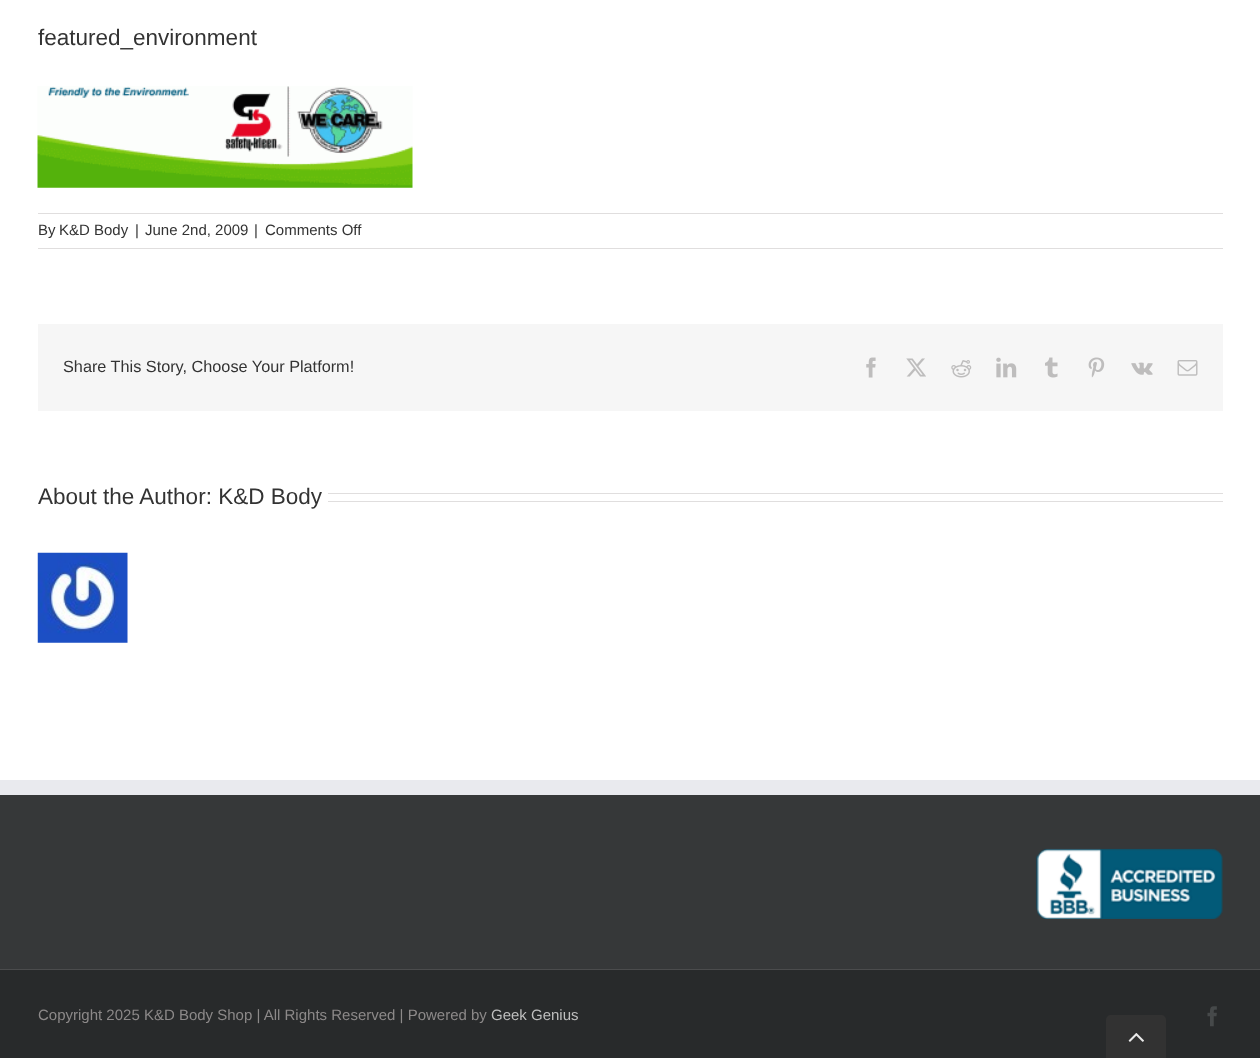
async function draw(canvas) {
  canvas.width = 1260;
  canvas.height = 1058;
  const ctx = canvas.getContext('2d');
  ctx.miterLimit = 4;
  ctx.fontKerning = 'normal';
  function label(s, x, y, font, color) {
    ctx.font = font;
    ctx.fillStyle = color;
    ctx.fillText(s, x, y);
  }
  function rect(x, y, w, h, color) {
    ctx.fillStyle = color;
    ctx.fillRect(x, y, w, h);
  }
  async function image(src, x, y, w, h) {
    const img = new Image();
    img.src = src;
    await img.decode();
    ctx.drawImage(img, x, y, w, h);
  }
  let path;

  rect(0, 0, 1260, 1058, '#fff');
  label('featured_environment', 38, 45, '22.5px Liberation Sans', '#333');
  await image('assets/img1.png', 37, 86, 376, 102);
  rect(38, 213, 1185, 1, '#e0dede');
  rect(38, 248, 1185, 1, '#e0dede');
  label('By', 38, 235, '15px Liberation Sans', '#333');
  label('K&D Body', 59, 235, '15px Liberation Sans', '#333');
  label('|', 135, 235, '15px Liberation Sans', '#333');
  label('June 2nd, 2009', 145, 235, '15px Liberation Sans', '#333');
  label('|', 254, 235, '15px Liberation Sans', '#333');
  label('Comments Off', 265, 235, '15px Liberation Sans', '#333');
  rect(38, 324, 1185, 87, '#f6f6f6');
  label('Share This Story, Choose Your Platform!', 63, 372, '16.25px Liberation Sans', '#333');
  await image('assets/img2.png', 866, 357, 10, 21);
  await image('assets/img3.png', 906, 358, 20, 19);
  await image('assets/img4.png', 951, 360, 21, 18);
  await image('assets/img5.png', 996, 357, 21, 21);
  await image('assets/img6.png', 1045, 357, 13, 21);
  await image('assets/img7.png', 1088, 357, 17, 21);
  await image('assets/img8.png', 1131, 362, 22, 13);
  await image('assets/img9.png', 1177, 360, 21, 16);
  label('About the Author: K&D Body', 38, 504, '22.5px Liberation Sans', '#333');
  rect(328, 493, 895, 1, '#e0dede');
  rect(328, 501, 895, 1, '#e0dede');
  await image('assets/img10.png', 37, 552, 91, 91);
  rect(0, 795, 1260, 174, '#363839');
  rect(0, 780, 1260, 15, '#e9eaee');
  await image('assets/img11.png', 1036, 848, 187, 71);
  rect(0, 970, 1260, 88, '#282a2b');
  rect(0, 969, 1260, 1, '#4b4c4d');
  label('Copyright 2025 K&D Body Shop | All Rights Reserved | Powered by', 38, 1020, '15px Liberation Sans', '#8c8989');
  label('Geek Genius', 491, 1020, '15px Liberation Sans', '#bfbfbf');
  await image('assets/img12.png', 1207, 1006, 10, 21);
  ctx.fillStyle = '#323232';
  path = new Path2D('M1111 1015H1161C1164 1015 1166 1017 1166 1020V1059H1106V1020C1106 1017 1108 1015 1111 1015Z');
  ctx.fill(path);
  await image('assets/img13.png', 1128, 1033, 16, 9);
}

draw(document.querySelector('canvas'));
